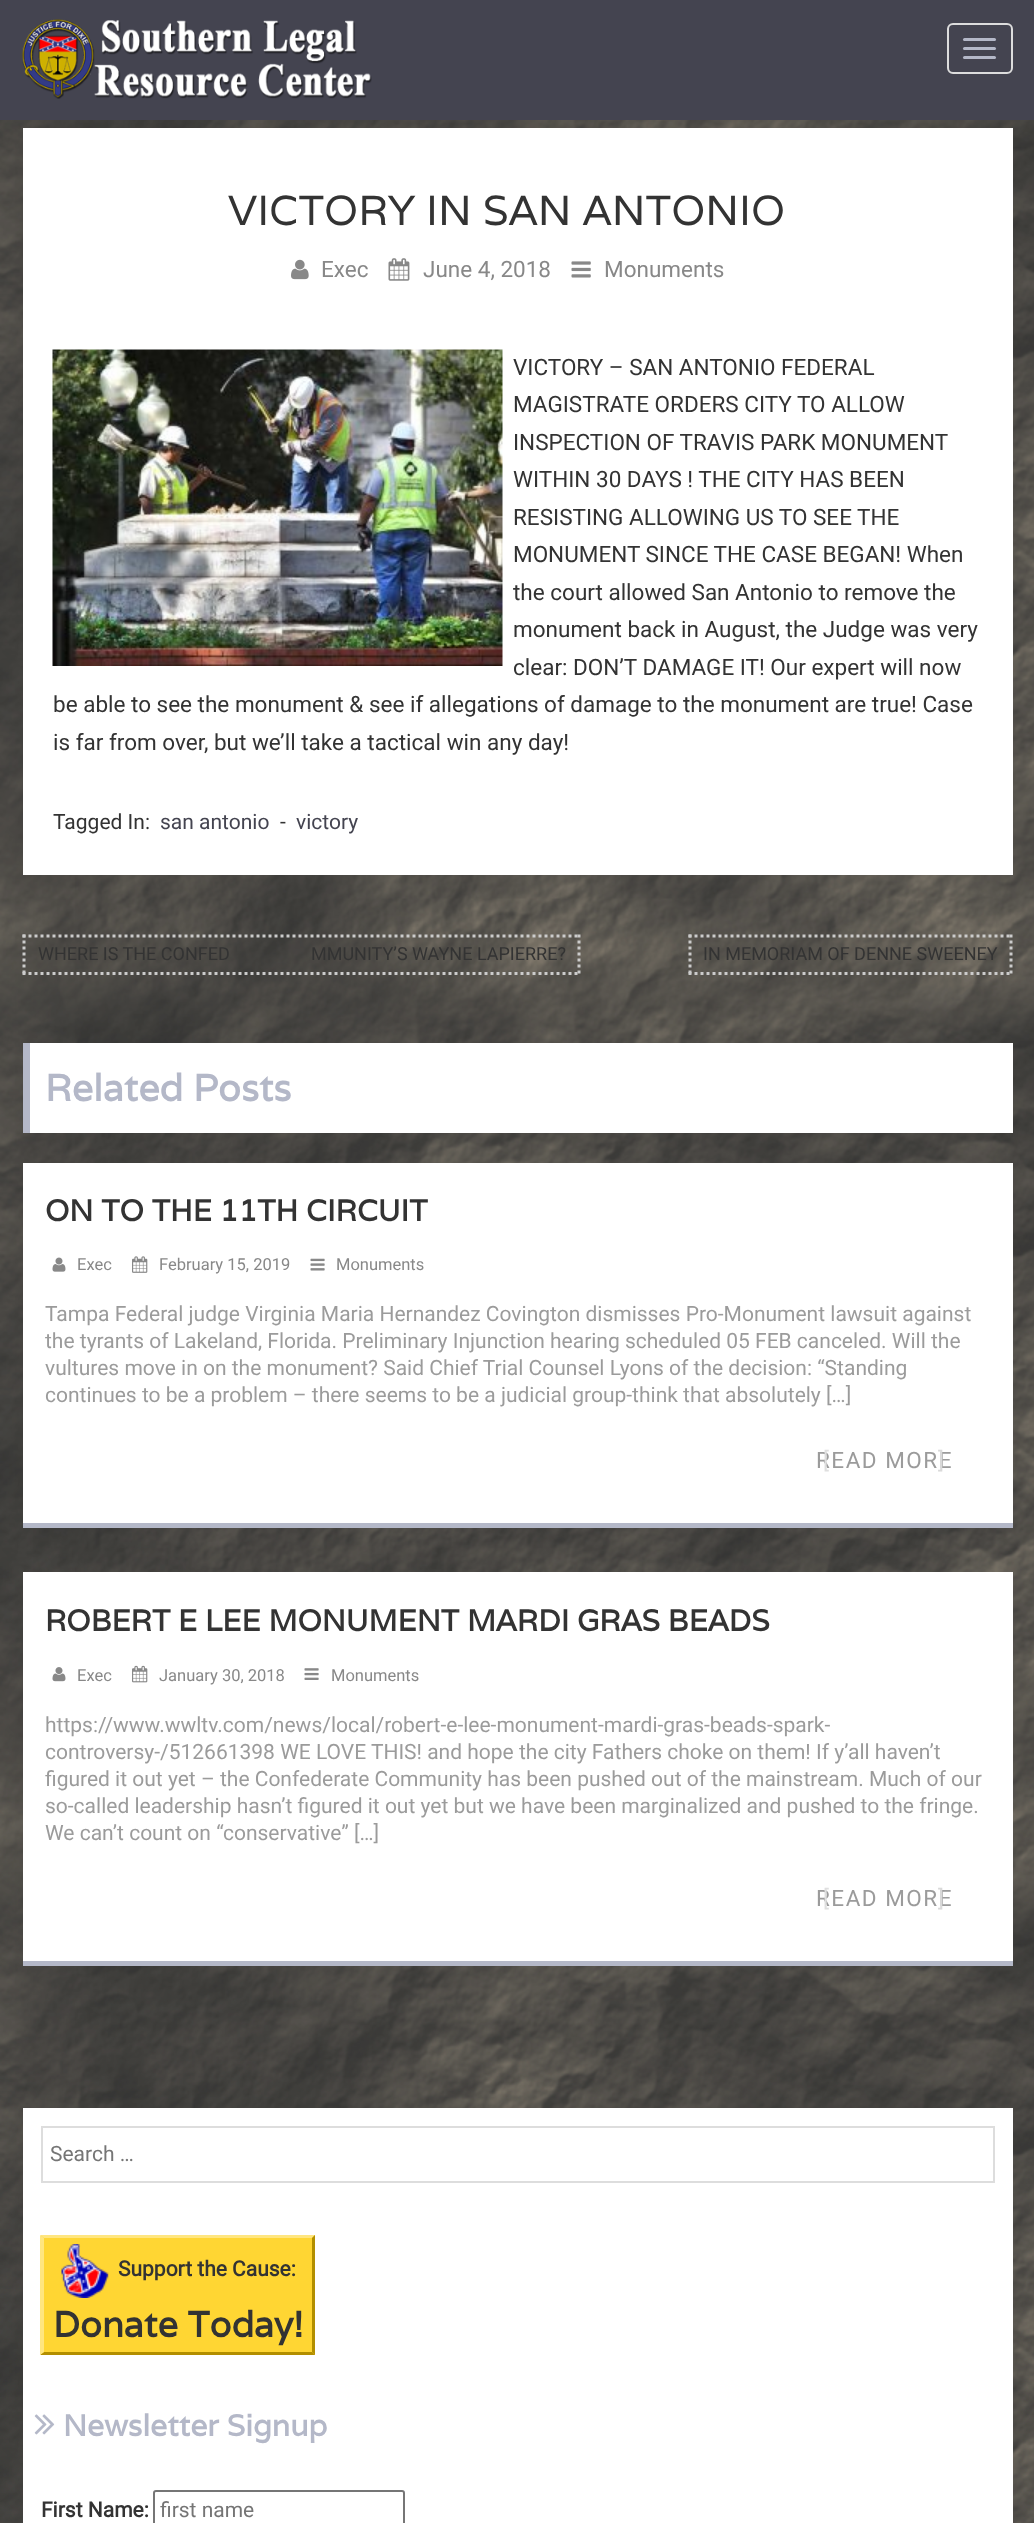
async function draw(canvas) {
  canvas.width = 1034;
  canvas.height = 2523;
  const ctx = canvas.getContext('2d');
  ctx.miterLimit = 4;
  ctx.fontKerning = 'normal';
  function label(s, x, y, font, color) {
    ctx.font = font;
    ctx.fillStyle = color;
    ctx.fillText(s, x, y);
  }
  function rect(x, y, w, h, color) {
    ctx.fillStyle = color;
    ctx.fillRect(x, y, w, h);
  }
  function roundedRect(x, y, w, h, r, color) {
    ctx.fillStyle = color;
    ctx.beginPath();
    ctx.roundRect(x, y, w, h, r);
    ctx.fill();
  }
  async function image(src, x, y, w, h) {
    const img = new Image();
    img.src = src;
    await img.decode();
    ctx.drawImage(img, x, y, w, h);
  }
  let path;

  rect(0, 0, 1034, 2523, '#fff');
  await image('assets/img1.png', 0, 120, 1034, 2403);
  rect(0, 0, 1034, 120, '#444450');
  await image('assets/img2.png', 22, 19, 350, 80);
  ctx.beginPath();
  ctx.roundRect(948, 24, 64, 49, 5);
  ctx.strokeStyle = '#ddd';
  ctx.lineWidth = 2;
  ctx.stroke();
  roundedRect(963, 38, 33, 3, 1.5, '#b4b8c8');
  roundedRect(963, 47, 33, 3, 1.5, '#b4b8c8');
  roundedRect(963, 56, 33, 3, 1.5, '#b4b8c8');
  rect(23, 128, 990, 747, '#fff');
  label('VICTORY IN SAN ANTONIO', 228, 225, '42px Varela', '#333');
  await image('assets/img3.png', 291, 259, 18, 21);
  label('Exec', 321, 277, '22.5px Roboto', '#888');
  await image('assets/img4.png', 388, 258, 22, 23);
  label('June 4, 2018', 423, 277, '22.5px Roboto', '#888');
  await image('assets/img5.png', 571, 261, 20, 17);
  label('Monuments', 604, 277, '22.5px Roboto', '#888');
  await image('assets/img6.png', 52, 349, 451, 317);
  label('VICTORY – SAN ANTONIO FEDERAL', 513, 375, '22.5px Roboto', '#333');
  label('MAGISTRATE ORDERS CITY TO ALLOW', 513, 412, '22.5px Roboto', '#333');
  label('INSPECTION OF TRAVIS PARK MONUMENT', 513, 450, '22.5px Roboto', '#333');
  label('WITHIN 30 DAYS ! THE CITY HAS BEEN', 513, 487, '22.5px Roboto', '#333');
  label('RESISTING ALLOWING US TO SEE THE', 513, 525, '22.5px Roboto', '#333');
  label('MONUMENT SINCE THE CASE BEGAN! When', 513, 562, '22.5px Roboto', '#333');
  label('the court allowed San Antonio to remove the', 513, 600, '22.5px Roboto', '#333');
  label('monument back in August, the Judge was very', 513, 637, '22.5px Roboto', '#333');
  label('clear: DON’T DAMAGE IT! Our expert will now', 513, 675, '22.5px Roboto', '#333');
  label('be able to see the monument & see if allegations of damage to the monument are true! Case', 53, 712, '22.5px Roboto', '#333');
  label('is far from over, but we’ll take a tactical win any day!', 53, 750, '22.5px Roboto', '#333');
  label('Tagged In:', 53, 829, '21px Roboto', '#333');
  label('san antonio', 160, 829, '21px Roboto', '#444450');
  label('-', 280, 829, '21px Roboto', '#333');
  label('victory', 296, 829, '21px Roboto', '#444450');
  path = new Path2D('M22.5 936H580.5');
  ctx.strokeStyle = '#ccc';
  ctx.lineWidth = 3;
  ctx.setLineDash([3, 3]);
  ctx.stroke(path);
  path = new Path2D('M579 934.5V975');
  ctx.stroke(path);
  path = new Path2D('M22.5 973.5H580.5');
  ctx.stroke(path);
  path = new Path2D('M24 934.5V975');
  ctx.stroke(path);
  label('WHERE IS THE CONFED', 38, 960, '18px Roboto', '#333');
  label('MMUNITY’S WAYNE LAPIERRE?', 311, 960, '18px Roboto', '#333');
  path = new Path2D('M688.5 936H1012.5');
  ctx.stroke(path);
  path = new Path2D('M1011 934.5V975');
  ctx.stroke(path);
  path = new Path2D('M688.5 973.5H1012.5');
  ctx.stroke(path);
  path = new Path2D('M690 934.5V975');
  ctx.stroke(path);
  label('IN MEMORIAM OF DENNE SWEENEY', 703, 960, '18px Roboto', '#333');
  rect(30, 1043, 983, 90, '#fff');
  rect(23, 1043, 7, 90, '#b4b8c8');
  label('Related Posts', 45, 1101, 'bold 37.5px Varela', '#b4b8c8');
  rect(23, 1163, 990, 360, '#fff');
  rect(23, 1523, 990, 5, '#b4b8c8');
  label('ON TO THE 11TH CIRCUIT', 45, 1221, 'bold 30px Varela', '#333');
  await image('assets/img7.png', 52, 1257, 14, 15);
  label('Exec', 77, 1270, '16.5px Roboto', '#888');
  await image('assets/img8.png', 132, 1256, 16, 17);
  label('February 15, 2019', 159, 1270, '16.5px Roboto', '#888');
  await image('assets/img9.png', 310, 1258, 15, 13);
  label('Monuments', 336, 1270, '16.5px Roboto', '#888');
  label('Tampa Federal judge Virginia Maria Hernandez Covington dismisses Pro-Monument lawsuit against', 45, 1321, '21px Roboto', '#9b9b9b');
  label('the tyrants of Lakeland, Florida. Preliminary Injunction hearing scheduled 05 FEB canceled. Will the', 45, 1348, '21px Roboto', '#9b9b9b');
  label('vultures move in on the monument? Said Chief Trial Counsel Lyons of the decision: “Standing', 45, 1375, '21px Roboto', '#9b9b9b');
  label('continues to be a problem – there seems to be a judicial group-think that absolutely […]', 45, 1402, '21px Roboto', '#9b9b9b');
  ctx.letterSpacing = '1.5px';
  label('READ MORE', 816, 1468, '22.5px Roboto', '#9b9b9b');
  label('[', 823, 1468, '22.5px Roboto', '#dfdfdf');
  label(']', 938, 1468, '22.5px Roboto', '#d9d9d9');
  rect(23, 1572, 990, 389, '#fff');
  rect(23, 1961, 990, 5, '#b4b8c8');
  ctx.letterSpacing = '0px';
  label('ROBERT E LEE MONUMENT MARDI GRAS BEADS', 45, 1631, 'bold 30px Varela', '#333');
  await image('assets/img10.png', 52, 1667, 14, 15);
  label('Exec', 77, 1681, '16.5px Roboto', '#888');
  await image('assets/img11.png', 132, 1665, 16, 18);
  label('January 30, 2018', 159, 1681, '16.5px Roboto', '#888');
  await image('assets/img12.png', 304, 1668, 15, 12);
  label('Monuments', 331, 1681, '16.5px Roboto', '#888');
  label('https://www.wwltv.com/news/local/robert-e-lee-monument-mardi-gras-beads-spark-', 45, 1732, '21px Roboto', '#9b9b9b');
  label('controversy-/512661398 WE LOVE THIS! and hope the city Fathers choke on them! If y’all haven’t', 45, 1759, '21px Roboto', '#9b9b9b');
  label('figured it out yet – the Confederate Community has been pushed out of the mainstream. Much of our', 45, 1786, '21px Roboto', '#9b9b9b');
  label('so-called leadership hasn’t figured it out yet but we have been marginalized and pushed to the fringe.', 45, 1813, '21px Roboto', '#9b9b9b');
  label('We can’t count on “conservative” […]', 45, 1840, '21px Roboto', '#9b9b9b');
  ctx.letterSpacing = '1.5px';
  label('READ MORE', 816, 1906, '22.5px Roboto', '#9b9b9b');
  label('[', 823, 1906, '22.5px Roboto', '#dfdfdf');
  label(']', 938, 1906, '22.5px Roboto', '#d9d9d9');
  rect(23, 2108, 990, 415, '#fff');
  ctx.strokeStyle = '#ddd';
  ctx.lineWidth = 2;
  ctx.setLineDash([]);
  ctx.strokeRect(42, 2127, 952, 55);
  ctx.letterSpacing = '0px';
  label('Search …', 50, 2161, '21px Roboto', '#757575');
  rect(41, 2235, 274, 120, '#ffd633');
  ctx.fillStyle = '#ffe680';
  path = new Path2D('M40 2235H315L312 2238H44Z');
  ctx.fill(path);
  ctx.fillStyle = '#b38f00';
  path = new Path2D('M315 2235V2355L312 2352V2238Z');
  ctx.fill(path);
  path = new Path2D('M315 2355H40L44 2352H312Z');
  ctx.fill(path);
  ctx.fillStyle = '#ffe680';
  path = new Path2D('M40 2355V2235L44 2238V2352Z');
  ctx.fill(path);
  await image('assets/img13.png', 61, 2244, 48, 54);
  label('Support the Cause:', 118, 2276, 'bold 21px Roboto', '#333');
  label('Donate Today!', 53, 2337, 'bold 36px Varela', '#333');
  await image('assets/img14.png', 34, 2414, 21, 21);
  label('Newsletter Signup', 63, 2436, 'bold 30px Varela', '#b4b8c8');
  label('First Name:', 41, 2517, 'bold 21px Roboto', '#333');
  ctx.beginPath();
  ctx.roundRect(154, 2491, 250, 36, 2);
  ctx.strokeStyle = '#767676';
  ctx.stroke();
  label('first name', 160, 2517, '21px Roboto', '#757575');
}

draw(document.querySelector('canvas'));
